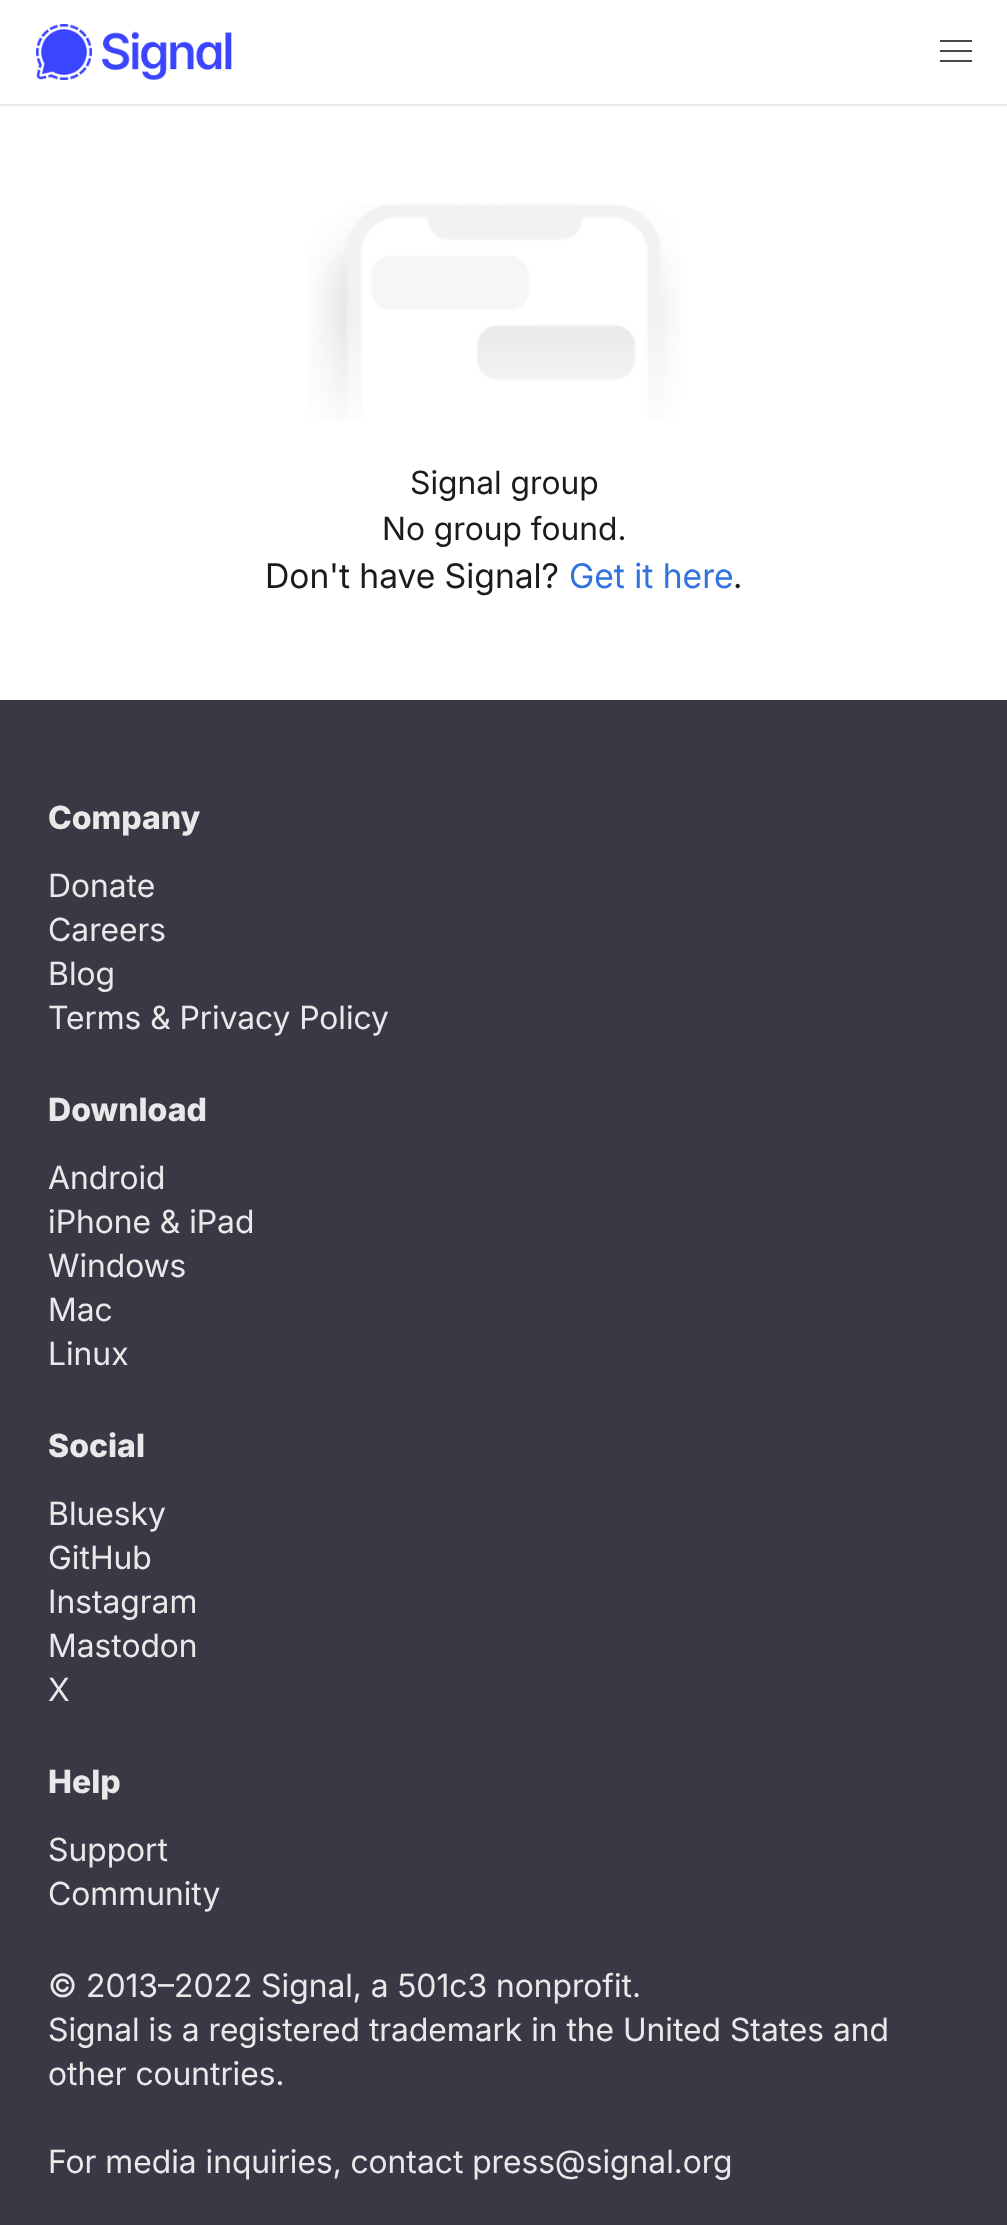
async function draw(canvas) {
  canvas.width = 1007;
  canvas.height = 2225;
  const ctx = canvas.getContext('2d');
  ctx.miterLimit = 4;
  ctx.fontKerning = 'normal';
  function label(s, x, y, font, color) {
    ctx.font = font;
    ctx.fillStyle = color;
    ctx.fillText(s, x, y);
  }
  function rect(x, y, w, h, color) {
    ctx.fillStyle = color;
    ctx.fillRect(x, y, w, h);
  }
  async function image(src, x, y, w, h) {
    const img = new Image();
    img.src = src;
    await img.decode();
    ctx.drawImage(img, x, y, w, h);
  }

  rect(0, 0, 1007, 2225, '#fff');
  rect(0, 104, 1007, 2, '#ebeaeb');
  await image('assets/img1.png', 36, 24, 196, 56);
  rect(940, 40, 32, 2, '#4a4a4a');
  rect(940, 50, 32, 2, '#4a4a4a');
  rect(940, 60, 32, 2, '#4a4a4a');
  await image('assets/img2.png', 308, 204, 373, 217);
  label('Signal group', 410, 494, '32px Inter', '#1b1b1b');
  label('No group found.', 382, 540, '32px Inter', '#1b1b1b');
  label('Don\'t have Signal?', 265, 588, '34px "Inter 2"', '#1b1b1b');
  label('Get it here', 569, 588, '34px "Inter 2"', '#3273dc');
  label('.', 733, 588, '34px "Inter 2"', '#1b1b1b');
  rect(0, 700, 1007, 1525, '#3c3744');
  label('Company', 48, 829, '800 32px Inter', '#e9e9e9');
  label('Donate', 48, 897, '32px Inter', '#e9e9e9');
  label('Careers', 48, 941, '32px Inter', '#e9e9e9');
  label('Blog', 48, 985, '32px Inter', '#e9e9e9');
  label('Terms & Privacy Policy', 48, 1029, '32px Inter', '#e9e9e9');
  label('Download', 48, 1121, '800 32px Inter', '#e9e9e9');
  label('Android', 48, 1189, '32px Inter', '#e9e9e9');
  label('iPhone & iPad', 48, 1233, '32px Inter', '#e9e9e9');
  label('Windows', 48, 1277, '32px Inter', '#e9e9e9');
  label('Mac', 48, 1321, '32px Inter', '#e9e9e9');
  label('Linux', 48, 1365, '32px Inter', '#e9e9e9');
  label('Social', 48, 1457, '800 32px Inter', '#e9e9e9');
  label('Bluesky', 48, 1525, '32px Inter', '#e9e9e9');
  label('GitHub', 48, 1569, '32px Inter', '#e9e9e9');
  label('Instagram', 48, 1613, '32px Inter', '#e9e9e9');
  label('Mastodon', 48, 1657, '32px Inter', '#e9e9e9');
  label('X', 48, 1701, '32px Inter', '#e9e9e9');
  label('Help', 48, 1793, '800 32px Inter', '#e9e9e9');
  label('Support', 48, 1861, '32px Inter', '#e9e9e9');
  label('Community', 48, 1905, '32px Inter', '#e9e9e9');
  label('© 2013–2022 Signal, a 501c3 nonprofit.', 48, 1997, '32px Inter', '#e9e9e9');
  label('Signal is a registered trademark in the United States and', 48, 2041, '32px Inter', '#e9e9e9');
  label('other countries.', 48, 2085, '32px Inter', '#e9e9e9');
  label('For media inquiries, contact press@signal.org', 48, 2173, '32px Inter', '#e9e9e9');
}

draw(document.querySelector('canvas'));
